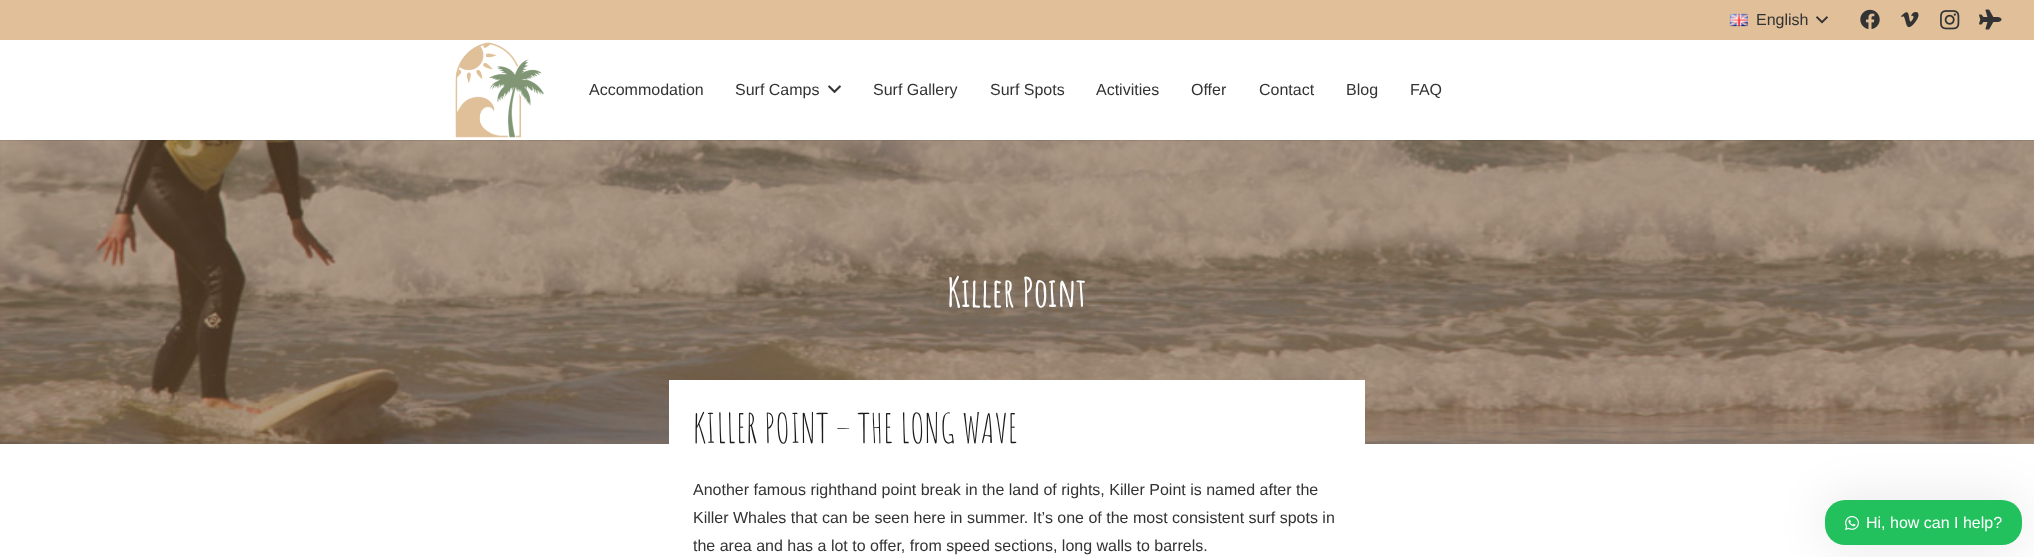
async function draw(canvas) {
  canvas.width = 2034;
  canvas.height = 557;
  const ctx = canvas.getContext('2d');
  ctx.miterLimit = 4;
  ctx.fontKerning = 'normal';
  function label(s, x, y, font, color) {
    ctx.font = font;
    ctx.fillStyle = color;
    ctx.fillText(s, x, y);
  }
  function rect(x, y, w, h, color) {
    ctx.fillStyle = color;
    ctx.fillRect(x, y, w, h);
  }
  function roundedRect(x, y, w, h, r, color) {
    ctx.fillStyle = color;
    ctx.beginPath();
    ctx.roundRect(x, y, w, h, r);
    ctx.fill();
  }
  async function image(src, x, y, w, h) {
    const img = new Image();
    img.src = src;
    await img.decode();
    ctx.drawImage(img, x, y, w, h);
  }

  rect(0, 0, 2034, 557, '#fff');
  rect(0, 0, 2034, 40, '#e0bf99');
  await image('assets/img1.png', 1729, 13, 19, 14);
  label('English', 1756, 25, '16px Liberation Sans', '#333');
  await image('assets/img2.png', 1816, 16, 12, 8);
  await image('assets/img3.png', 1860, 9, 20, 20);
  await image('assets/img4.png', 1901, 12, 18, 16);
  await image('assets/img5.png', 1940, 10, 20, 20);
  await image('assets/img6.png', 1979, 9, 23, 21);
  await image('assets/img9.png', 0, 140, 2034, 304);
  rect(0, 140, 2034, 1, '#00000014');
  await image('assets/img7.png', 455, 42, 90, 96);
  label('Accommodation', 589, 95, '16px Liberation Sans', '#333');
  label('Surf Camps', 735, 95, '16px Liberation Sans', '#333');
  await image('assets/img8.png', 828, 85, 13, 8);
  label('Surf Gallery', 873, 95, '16px Liberation Sans', '#333');
  label('Surf Spots', 990, 95, '16px Liberation Sans', '#333');
  label('Activities', 1096, 95, '16px Liberation Sans', '#333');
  label('Offer', 1191, 95, '16px Liberation Sans', '#333');
  label('Contact', 1259, 95, '16px Liberation Sans', '#333');
  label('Blog', 1346, 95, '16px Liberation Sans', '#333');
  label('FAQ', 1410, 95, '16px Liberation Sans', '#333');
  label('Killer Point', 947, 307, 'bold 40px Amatic SC', '#fff');
  rect(669, 380, 696, 64, '#fff');
  label('KILLER POINT – THE LONG WAVE', 693, 443, '40px Amatic SC', '#1a1a1a');
  label('Another famous righthand point break in the land of rights, Killer Point is named after the', 693, 495, '16px Liberation Sans', '#333');
  label('Killer Whales that can be seen here in summer. It’s one of the most consistent surf spots in', 693, 523, '16px Liberation Sans', '#333');
  label('the area and has a lot to offer, from speed sections, long walls to barrels.', 693, 551, '16px Liberation Sans', '#333');
  ctx.fillStyle = '#0000001a';
  ctx.filter = 'blur(25px)';
  ctx.beginPath();
  ctx.roundRect(1825, 500, 197, 45, 20);
  ctx.fill();
  ctx.filter = 'none';
  roundedRect(1825, 500, 197, 45, 20, '#22c15e');
  await image('assets/img10.png', 1845, 516, 14, 14);
  label('Hi, how can I help?', 1866, 528, '16px Liberation Sans', '#fff');
}

draw(document.querySelector('canvas'));
